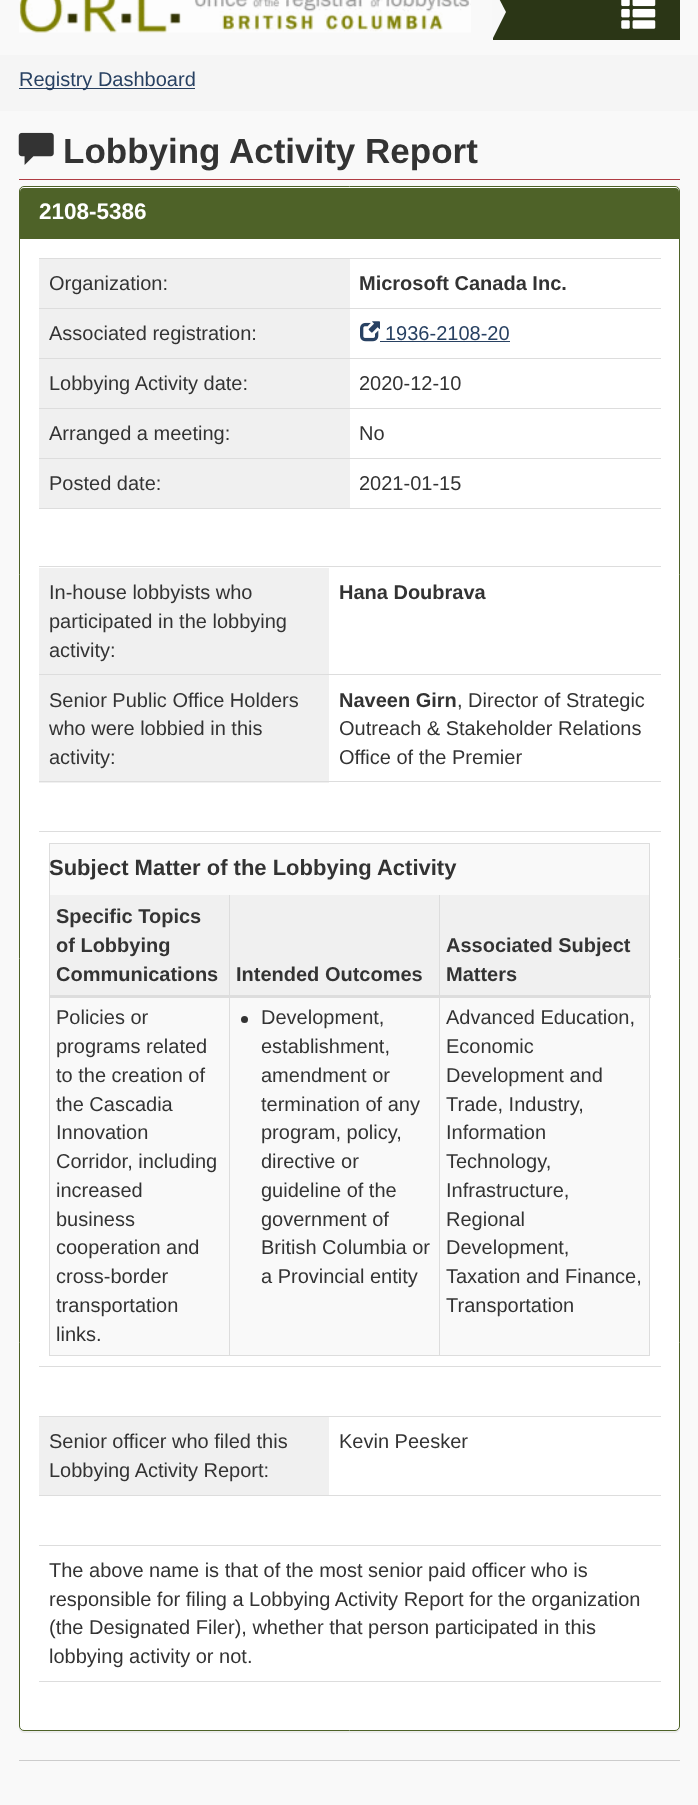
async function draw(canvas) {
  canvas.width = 698;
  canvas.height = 1805;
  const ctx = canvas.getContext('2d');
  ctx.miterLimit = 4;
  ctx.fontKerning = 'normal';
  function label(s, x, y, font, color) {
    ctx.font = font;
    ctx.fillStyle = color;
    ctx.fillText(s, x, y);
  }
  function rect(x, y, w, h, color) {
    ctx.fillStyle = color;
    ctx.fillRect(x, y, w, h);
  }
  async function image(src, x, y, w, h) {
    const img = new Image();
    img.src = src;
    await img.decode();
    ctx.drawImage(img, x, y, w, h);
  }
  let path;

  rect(0, 0, 698, 1805, '#f9f9f9');
  await image('assets/img1.png', 19, 0, 452, 33);
  rect(493, 0, 187, 40, '#2b3616');
  ctx.fillStyle = '#f8f8f8';
  path = new Path2D('M492 40V-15L506 12Z');
  ctx.fill(path);
  await image('assets/img2.png', 621, 0, 35, 29);
  rect(0, 55, 698, 56, '#f5f5f5');
  rect(19, 88, 176, 1, '#284162');
  label('Registry Dashboard', 19, 86, '20px Liberation Sans', '#284162');
  rect(19, 179, 661, 1, '#af3c43');
  await image('assets/img3.png', 18, 132, 36, 33);
  label('Lobbying Activity Report', 63, 163, 'bold 35px Liberation Sans', '#333');
  ctx.fillStyle = '#0000000d';
  ctx.filter = 'blur(0.5px)';
  ctx.beginPath();
  ctx.roundRect(19, 188, 661, 1545, 5);
  ctx.fill();
  ctx.filter = 'none';
  ctx.fillStyle = '#fff';
  ctx.beginPath();
  ctx.roundRect(19.5, 186.5, 660, 1544, 4.5);
  ctx.fill();
  ctx.strokeStyle = '#4e6228';
  ctx.stroke();
  ctx.fillStyle = '#4e6228';
  ctx.beginPath();
  ctx.roundRect(20, 188, 659, 51, [4, 4, 0, 0]);
  ctx.fill();
  label('2108-5386', 39, 219, 'bold 22.5px Liberation Sans', '#fff');
  rect(39, 259, 311, 49, '#f0f0f0');
  label('Organization:', 49, 290, '20px Liberation Sans', '#333');
  rect(39, 258, 622, 1, '#ddd');
  label('Microsoft Canada Inc.', 359, 290, 'bold 20px Liberation Sans', '#333');
  rect(39, 309, 311, 49, '#f0f0f0');
  label('Associated registration:', 49, 340, '20px Liberation Sans', '#333');
  rect(39, 308, 622, 1, '#ddd');
  await image('assets/img4.png', 360, 321, 20, 21);
  label('1936-2108-20', 385, 340, '20px Liberation Sans', '#284162');
  rect(380, 341, 130, 1, '#284162');
  rect(39, 359, 311, 49, '#f0f0f0');
  label('Lobbying Activity date:', 49, 390, '20px Liberation Sans', '#333');
  rect(39, 358, 622, 1, '#ddd');
  label('2020-12-10', 359, 390, '20px Liberation Sans', '#333');
  rect(39, 409, 311, 49, '#f0f0f0');
  label('Arranged a meeting:', 49, 440, '20px Liberation Sans', '#333');
  rect(39, 408, 622, 1, '#ddd');
  label('No', 359, 440, '20px Liberation Sans', '#333');
  rect(39, 459, 311, 49, '#f0f0f0');
  label('Posted date:', 49, 490, '20px Liberation Sans', '#333');
  rect(39, 458, 622, 1, '#ddd');
  rect(39, 508, 622, 1, '#ddd');
  label('2021-01-15', 359, 490, '20px Liberation Sans', '#333');
  rect(39, 568, 290, 106, '#f0f0f0');
  label('In-house lobbyists who', 49, 599, '20px Liberation Sans', '#333');
  label('participated in the lobbying', 49, 628, '20px Liberation Sans', '#333');
  label('activity:', 49, 657, '20px Liberation Sans', '#333');
  rect(39, 566, 622, 1, '#ddd');
  label('Hana Doubrava', 339, 599, 'bold 20px Liberation Sans', '#333');
  rect(39, 675, 290, 108, '#f0f0f0');
  label('Senior Public Office Holders', 49, 707, '20px Liberation Sans', '#333');
  label('who were lobbied in this', 49, 735, '20px Liberation Sans', '#333');
  label('activity:', 49, 764, '20px Liberation Sans', '#333');
  rect(39, 674, 622, 1, '#ddd');
  label('Naveen Girn', 339, 707, 'bold 20px Liberation Sans', '#333');
  label(', Director of Strategic', 457, 707, '20px Liberation Sans', '#333');
  label('Outreach & Stakeholder Relations', 339, 735, '20px Liberation Sans', '#333');
  label('Office of the Premier', 339, 764, '20px Liberation Sans', '#333');
  rect(39, 781, 622, 1, '#ddd');
  rect(39, 831, 622, 1, '#ddd');
  rect(50, 844, 599, 511, '#f9f9f9');
  rect(49, 843, 601, 1, '#ddd');
  rect(649, 843, 1, 513, '#ddd');
  rect(49, 1355, 601, 1, '#ddd');
  rect(49, 843, 1, 513, '#ddd');
  label('Subject Matter of the Lobbying Activity', 49, 875, 'bold 22px Liberation Sans', '#333');
  rect(50, 895, 179, 100, '#f0f0f0');
  label('Specific Topics', 56, 923, 'bold 20px Liberation Sans', '#333');
  label('of Lobbying', 56, 952, 'bold 20px Liberation Sans', '#333');
  label('Communications', 56, 981, 'bold 20px Liberation Sans', '#333');
  rect(230, 895, 209, 100, '#f0f0f0');
  label('Intended Outcomes', 236, 981, 'bold 20px Liberation Sans', '#333');
  rect(440, 895, 209, 100, '#f0f0f0');
  rect(229, 895, 1, 461, '#ddd');
  rect(439, 895, 1, 461, '#ddd');
  rect(49, 995, 602, 3, '#ddd');
  label('Associated Subject', 446, 952, 'bold 20px Liberation Sans', '#333');
  label('Matters', 446, 981, 'bold 20px Liberation Sans', '#333');
  label('Policies or', 56, 1024, '20px Liberation Sans', '#333');
  label('programs related', 56, 1053, '20px Liberation Sans', '#333');
  label('to the creation of', 56, 1082, '20px Liberation Sans', '#333');
  label('the Cascadia', 56, 1111, '20px Liberation Sans', '#333');
  label('Innovation', 56, 1139, '20px Liberation Sans', '#333');
  label('Corridor, including', 56, 1168, '20px Liberation Sans', '#333');
  label('increased', 56, 1197, '20px Liberation Sans', '#333');
  label('business', 56, 1226, '20px Liberation Sans', '#333');
  label('cooperation and', 56, 1254, '20px Liberation Sans', '#333');
  label('cross-border', 56, 1283, '20px Liberation Sans', '#333');
  label('transportation', 56, 1312, '20px Liberation Sans', '#333');
  label('links.', 56, 1341, '20px Liberation Sans', '#333');
  ctx.beginPath();
  ctx.arc(244.5, 1019.5, 3.5, 0, 2 * Math.PI);
  ctx.fill();
  label('Development,', 261, 1024, '20px Liberation Sans', '#333');
  label('establishment,', 261, 1053, '20px Liberation Sans', '#333');
  label('amendment or', 261, 1082, '20px Liberation Sans', '#333');
  label('termination of any', 261, 1111, '20px Liberation Sans', '#333');
  label('program, policy,', 261, 1139, '20px Liberation Sans', '#333');
  label('directive or', 261, 1168, '20px Liberation Sans', '#333');
  label('guideline of the', 261, 1197, '20px Liberation Sans', '#333');
  label('government of', 261, 1226, '20px Liberation Sans', '#333');
  label('British Columbia or', 261, 1254, '20px Liberation Sans', '#333');
  label('a Provincial entity', 261, 1283, '20px Liberation Sans', '#333');
  label('Advanced Education,', 446, 1024, '20px Liberation Sans', '#333');
  label('Economic', 446, 1053, '20px Liberation Sans', '#333');
  label('Development and', 446, 1082, '20px Liberation Sans', '#333');
  label('Trade, Industry,', 446, 1111, '20px Liberation Sans', '#333');
  label('Information', 446, 1139, '20px Liberation Sans', '#333');
  label('Technology,', 446, 1168, '20px Liberation Sans', '#333');
  label('Infrastructure,', 446, 1197, '20px Liberation Sans', '#333');
  label('Regional', 446, 1226, '20px Liberation Sans', '#333');
  label('Development,', 446, 1254, '20px Liberation Sans', '#333');
  label('Taxation and Finance,', 446, 1283, '20px Liberation Sans', '#333');
  label('Transportation', 446, 1312, '20px Liberation Sans', '#333');
  rect(39, 1366, 622, 1, '#ddd');
  rect(39, 1417, 290, 78, '#f0f0f0');
  label('Senior officer who filed this', 49, 1448, '20px Liberation Sans', '#333');
  label('Lobbying Activity Report:', 49, 1477, '20px Liberation Sans', '#333');
  rect(39, 1416, 622, 1, '#ddd');
  label('Kevin Peesker', 339, 1448, '20px Liberation Sans', '#333');
  rect(39, 1495, 622, 1, '#ddd');
  rect(39, 1545, 622, 1, '#ddd');
  rect(39, 1681, 622, 1, '#ddd');
  label('The above name is that of the most senior paid officer who is', 49, 1577, '20px Liberation Sans', '#333');
  label('responsible for filing a Lobbying Activity Report for the organization', 49, 1606, '20px Liberation Sans', '#333');
  label('(the Designated Filer), whether that person participated in this', 49, 1634, '20px Liberation Sans', '#333');
  label('lobbying activity or not.', 49, 1663, '20px Liberation Sans', '#333');
  rect(19, 1760, 661, 1, '#ccc');
}

draw(document.querySelector('canvas'));
